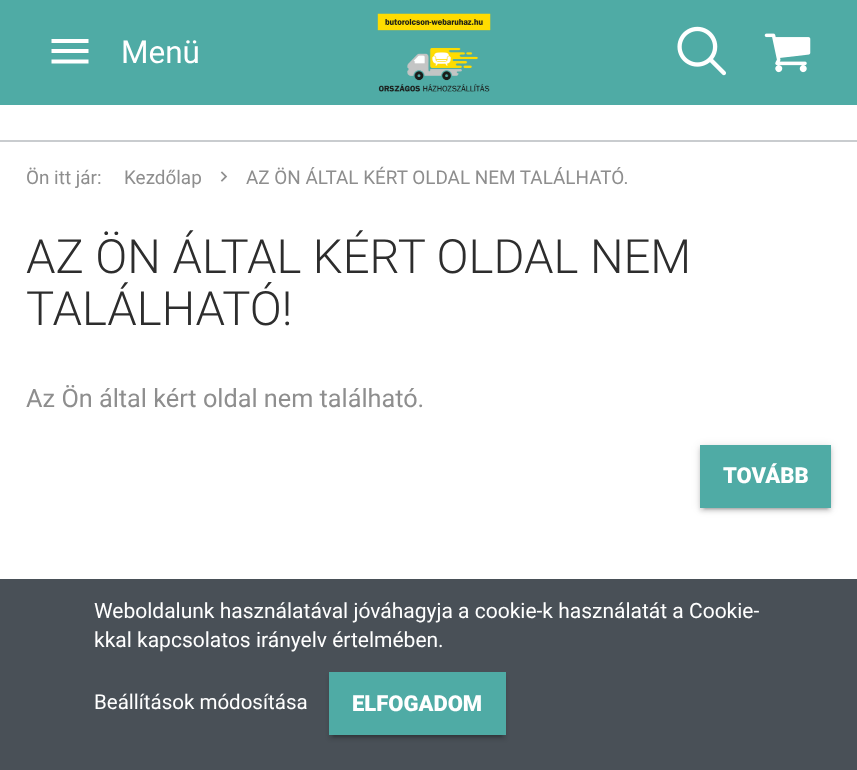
async function draw(canvas) {
  canvas.width = 857;
  canvas.height = 770;
  const ctx = canvas.getContext('2d');
  ctx.miterLimit = 4;
  ctx.fontKerning = 'normal';
  function label(s, x, y, font, color) {
    ctx.font = font;
    ctx.fillStyle = color;
    ctx.fillText(s, x, y);
  }
  function rect(x, y, w, h, color) {
    ctx.fillStyle = color;
    ctx.fillRect(x, y, w, h);
  }
  async function image(src, x, y, w, h) {
    const img = new Image();
    img.src = src;
    await img.decode();
    ctx.drawImage(img, x, y, w, h);
  }
  let path;

  rect(0, 0, 857, 770, '#fff');
  rect(0, 0, 857, 105, '#4faba5');
  ctx.fillStyle = '#fff';
  path = new Path2D('M51.5 63.5H88.5V59.5H51.5ZM51.5 53H88.5V49H51.5ZM51.5 39V43H88.5V39Z');
  ctx.fill(path);
  label('Menü', 121, 63, '31.5px Roboto', '#fff');
  await image('assets/img1.png', 377, 13, 114, 79);
  await image('assets/img2.png', 677, 26, 49, 50);
  await image('assets/img3.png', 764, 33, 47, 40);
  rect(0, 140, 857, 2, '#c9cccf');
  label('Ön itt jár:', 26, 184, '18.9px Roboto', '#8e8e8e');
  label('Kezdőlap', 124, 184, '18.9px Roboto', '#8e8e8e');
  await image('assets/img4.png', 220, 171, 8, 11);
  label('AZ ÖN ÁLTAL KÉRT OLDAL NEM TALÁLHATÓ.', 246, 184, '18.9px Roboto', '#8e8e8e');
  label('AZ ÖN ÁLTAL KÉRT OLDAL NEM', 26, 273, '300 47.25px Roboto', '#2d2d2d');
  label('TALÁLHATÓ!', 26, 325, '300 47.25px Roboto', '#2d2d2d');
  label('Az Ön által kért oldal nem található.', 26, 407, '25.25px Roboto', '#8e8e8e');
  ctx.fillStyle = '#00000033';
  ctx.filter = 'blur(1px)';
  ctx.beginPath();
  ctx.rect(704, 453, 124, 56);
  ctx.fill();
  ctx.filter = 'none';
  ctx.fillStyle = '#0000001f';
  ctx.filter = 'blur(4.5px)';
  ctx.beginPath();
  ctx.rect(700, 446, 131, 63);
  ctx.fill();
  ctx.filter = 'none';
  ctx.fillStyle = '#00000024';
  ctx.filter = 'blur(2px)';
  ctx.beginPath();
  ctx.rect(700, 448, 131, 63);
  ctx.fill();
  ctx.filter = 'none';
  rect(700, 445, 131, 63, '#4faba5');
  label('TOVÁBB', 723, 483, '900 22px Roboto', '#fff');
  rect(0, 579, 857, 191, '#495057');
  label('Weboldalunk használatával jóváhagyja a cookie-k használatát a Cookie-', 94, 618, '21px Roboto', '#fff');
  label('kkal kapcsolatos irányelv értelmében.', 94, 647, '21px Roboto', '#fff');
  label('Beállítások módosítása', 94, 709, '20.5px Roboto', '#fff');
  ctx.fillStyle = '#00000033';
  ctx.filter = 'blur(1px)';
  ctx.beginPath();
  ctx.rect(333, 681, 169, 56);
  ctx.fill();
  ctx.filter = 'none';
  ctx.fillStyle = '#00000024';
  ctx.filter = 'blur(2px)';
  ctx.beginPath();
  ctx.rect(329, 676, 177, 63);
  ctx.fill();
  ctx.filter = 'none';
  rect(329, 672, 177, 63, '#4faba5');
  label('ELFOGADOM', 352, 711, '900 22px Roboto', '#fff');
}

draw(document.querySelector('canvas'));
